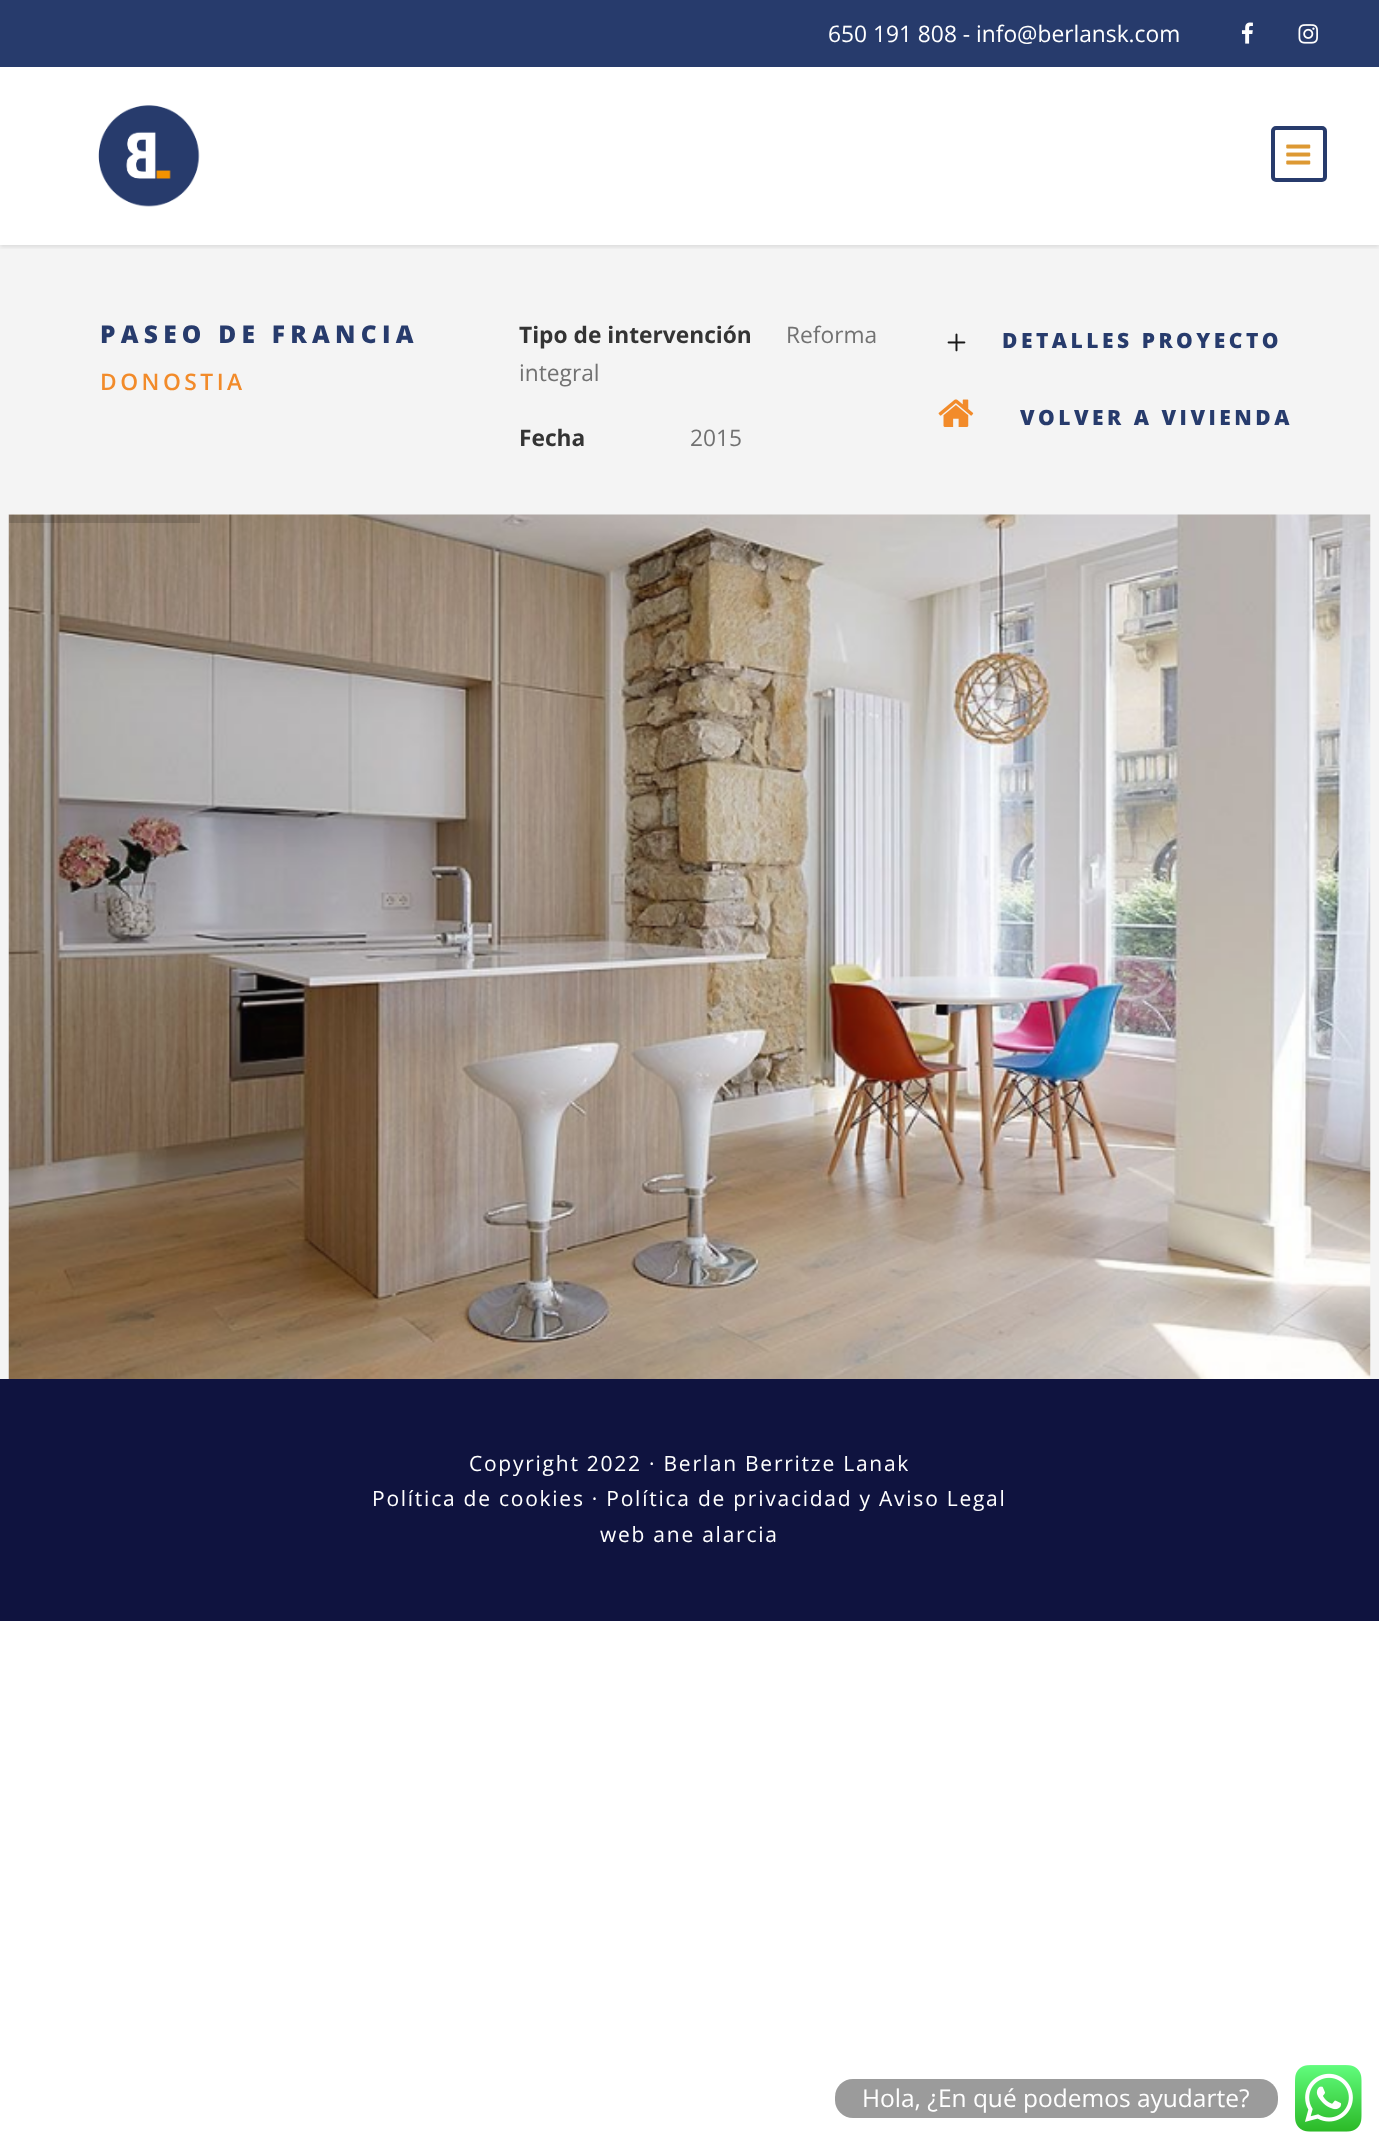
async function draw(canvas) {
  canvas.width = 1379;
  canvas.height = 2149;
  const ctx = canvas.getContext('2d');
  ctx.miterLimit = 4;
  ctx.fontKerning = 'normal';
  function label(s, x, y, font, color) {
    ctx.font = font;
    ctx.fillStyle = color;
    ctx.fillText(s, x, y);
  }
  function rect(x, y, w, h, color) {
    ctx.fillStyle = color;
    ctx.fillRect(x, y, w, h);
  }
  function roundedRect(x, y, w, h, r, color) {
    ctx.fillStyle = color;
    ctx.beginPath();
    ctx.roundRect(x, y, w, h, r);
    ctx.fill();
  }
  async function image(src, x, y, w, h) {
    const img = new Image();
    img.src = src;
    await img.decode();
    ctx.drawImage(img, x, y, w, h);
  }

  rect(0, 0, 1379, 2149, '#fff');
  rect(0, 0, 1379, 67, '#273b6c');
  label('650 191 808 - info@berlansk.com', 828, 42, '22.75px Open Sans', '#fff');
  await image('assets/img1.png', 1241, 22, 12, 22);
  await image('assets/img2.png', 1298, 24, 20, 20);
  rect(0, 245, 1379, 1134, '#f4f4f4');
  ctx.save();
  ctx.beginPath();
  ctx.rect(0, 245, 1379, 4);
  ctx.clip();
  ctx.fillStyle = '#0000001a';
  ctx.filter = 'blur(2px)';
  ctx.beginPath();
  ctx.rect(0, 68, 1379, 179);
  ctx.fill();
  ctx.filter = 'none';
  ctx.restore();
  await image('assets/img3.png', 98, 105, 102, 102);
  ctx.beginPath();
  ctx.roundRect(1273, 128, 52, 52, 3);
  ctx.strokeStyle = '#273b6c';
  ctx.lineWidth = 4;
  ctx.stroke();
  await image('assets/img4.png', 1286, 144, 25, 21);
  ctx.letterSpacing = '5.25px';
  label('PASEO DE FRANCIA', 100, 343, '800 24.5px Open Sans', '#273b6c');
  ctx.letterSpacing = '3.5px';
  label('DONOSTIA', 100, 390, '600 22.75px Open Sans', '#f28b2a');
  ctx.letterSpacing = '0px';
  label('Tipo de intervención', 519, 343, 'bold 22.75px Open Sans', '#343434');
  label('Reforma', 786, 343, '22.75px Open Sans', '#727272');
  label('integral', 519, 381, '22.75px Open Sans', '#727272');
  label('Fecha', 519, 446, 'bold 22.75px Open Sans', '#343434');
  label('2015', 690, 446, '22.75px Open Sans', '#727272');
  await image('assets/img5.png', 947, 333, 19, 19);
  ctx.letterSpacing = '3.5px';
  label('DETALLES PROYECTO', 1002, 348, '800 21px Open Sans', '#273b6c');
  await image('assets/img6.png', 938, 399, 36, 28);
  label('VOLVER A VIVIENDA', 1020, 425, '800 21px Open Sans', '#273b6c');
  await image('assets/img7.png', 8, 514, 1363, 865);
  rect(9, 515, 191, 8, '#00000026');
  rect(0, 1379, 1379, 242, '#0f133f');
  ctx.letterSpacing = '1.75px';
  label('Copyright 2022 · Berlan Berritze Lanak', 469, 1471, '21px Open Sans', '#fff');
  label('Política de cookies · Política de privacidad y Aviso Legal', 372, 1506, '21px Open Sans', '#fff');
  label('web ane alarcia', 600, 1542, '21px Open Sans', '#fff');
  roundedRect(835, 2079, 443, 39, 18, '#9b9b9b');
  ctx.letterSpacing = '0px';
  label('Hola, ¿En qué podemos ayudarte?', 862, 2107, '24.5px Open Sans', '#fff');
  await image('assets/img8.png', 1295, 2065, 67, 67);
}

draw(document.querySelector('canvas'));
